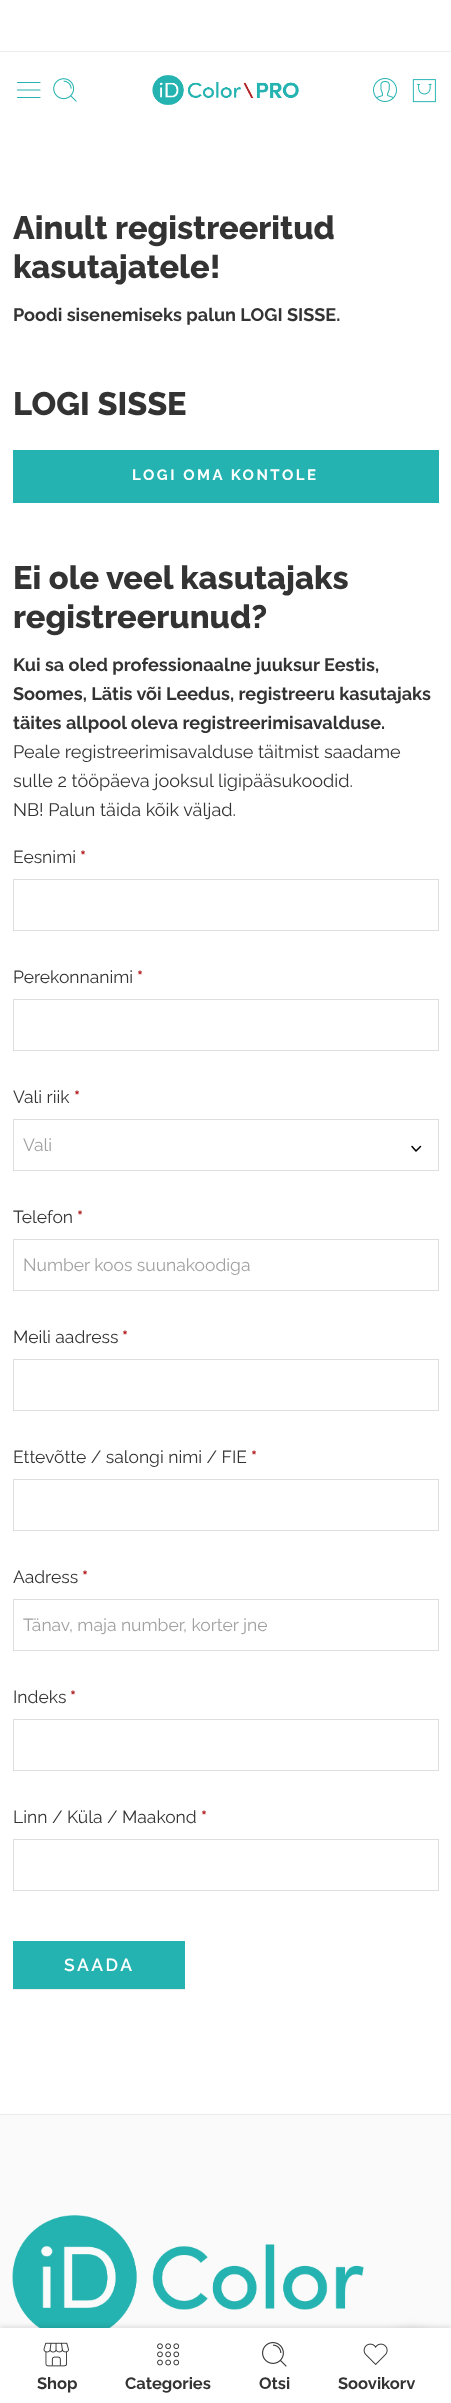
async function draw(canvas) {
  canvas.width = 451;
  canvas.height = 2403;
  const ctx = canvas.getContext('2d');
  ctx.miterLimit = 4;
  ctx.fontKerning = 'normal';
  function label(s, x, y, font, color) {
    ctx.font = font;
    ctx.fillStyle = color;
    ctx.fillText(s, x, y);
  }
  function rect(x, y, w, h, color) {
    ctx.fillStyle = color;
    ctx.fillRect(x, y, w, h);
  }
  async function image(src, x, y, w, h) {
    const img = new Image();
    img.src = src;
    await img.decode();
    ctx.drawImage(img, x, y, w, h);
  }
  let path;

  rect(0, 0, 451, 2403, '#fff');
  rect(0, 51, 451, 1, '#ececec');
  path = new Path2D('M17.5 90H40M17.5 82.5H40M17.5 97.5H40');
  ctx.strokeStyle = '#24b3b0';
  ctx.lineWidth = 1.2;
  ctx.lineCap = 'round';
  ctx.lineJoin = 'round';
  ctx.stroke(path);
  await image('assets/img1.png', 53, 78, 24, 24);
  await image('assets/img2.png', 152, 75, 147, 30);
  await image('assets/img3.png', 373, 78, 24, 24);
  await image('assets/img4.png', 412, 79, 24, 24);
  label('Ainult registreeritud', 13, 239, '800 32.5px Raleway', '#333');
  label('kasutajatele!', 13, 278, '800 32.5px Raleway', '#333');
  label('Poodi sisenemiseks palun LOGI SISSE.', 13, 321, 'bold 18.1px Raleway', '#333');
  label('LOGI SISSE', 13, 415, '800 32.5px Raleway', '#333');
  rect(13, 450, 426, 53, '#24b3b0');
  ctx.letterSpacing = '2.5px';
  label('LOGI OMA KONTOLE', 132, 480, 'bold 15px Raleway', '#fff');
  ctx.letterSpacing = '0px';
  label('Ei ole veel kasutajaks', 13, 589, '800 32.5px Raleway', '#333');
  label('registreerunud?', 13, 628, '800 32.5px Raleway', '#333');
  label('Kui sa oled professionaalne juuksur Eestis,', 13, 671, 'bold 18.1px Raleway', '#333');
  label('Soomes, Lätis või Leedus, registreeru kasutajaks', 13, 700, 'bold 18.1px Raleway', '#333');
  label('täites allpool oleva registreerimisavalduse.', 13, 729, 'bold 18.1px Raleway', '#333');
  label('Peale registreerimisavalduse täitmist saadame', 13, 758, '18.1px Raleway', '#333');
  label('sulle 2 tööpäeva jooksul ligipääsukoodid.', 13, 787, '18.1px Raleway', '#333');
  label('NB! Palun täida kõik väljad.', 13, 816, '18.1px Raleway', '#333');
  label('Eesnimi', 13, 863, '17.5px Raleway', '#333');
  label('*', 80, 863, 'bold 17.5px Raleway', '#b32326');
  ctx.strokeStyle = '#dedede';
  ctx.lineWidth = 1;
  ctx.lineJoin = 'miter';
  ctx.strokeRect(13.5, 879.5, 425, 51);
  label('Perekonnanimi', 13, 983, '17.5px Raleway', '#333');
  label('*', 137, 983, 'bold 17.5px Raleway', '#b32326');
  ctx.strokeRect(13.5, 999.5, 425, 51);
  label('Vali riik', 13, 1103, '17.5px Raleway', '#333');
  label('*', 74, 1103, 'bold 17.5px Raleway', '#b32326');
  path = new Path2D('M412 1146.5L416 1151L420.5 1146.5');
  ctx.strokeStyle = '#000';
  ctx.lineWidth = 1.5;
  ctx.lineJoin = 'round';
  ctx.stroke(path);
  ctx.strokeStyle = '#dedede';
  ctx.lineWidth = 1;
  ctx.lineJoin = 'miter';
  ctx.strokeRect(13.5, 1119.5, 425, 51);
  label('Vali', 23, 1151, '17.5px Raleway', '#a1a1a1');
  label('Telefon', 13, 1223, '17.5px Raleway', '#333');
  label('*', 77, 1223, 'bold 17.5px Raleway', '#b32326');
  ctx.strokeRect(13.5, 1239.5, 425, 51);
  label('Number koos suunakoodiga', 23, 1271, '17.5px Raleway', '#a1a1a1');
  label('Meili aadress', 13, 1343, '17.5px Raleway', '#333');
  label('*', 122, 1343, 'bold 17.5px Raleway', '#b32326');
  ctx.strokeRect(13.5, 1359.5, 425, 51);
  label('Ettevõtte / salongi nimi / FIE', 13, 1463, '17.5px Raleway', '#333');
  label('*', 251, 1463, 'bold 17.5px Raleway', '#b32326');
  ctx.strokeRect(13.5, 1479.5, 425, 51);
  label('Aadress', 13, 1583, '17.5px Raleway', '#333');
  label('*', 82, 1583, 'bold 17.5px Raleway', '#b32326');
  ctx.strokeRect(13.5, 1599.5, 425, 51);
  label('Tänav, maja number, korter jne', 23, 1631, '17.5px Raleway', '#a1a1a1');
  label('Indeks', 13, 1703, '17.5px Raleway', '#333');
  label('*', 70, 1703, 'bold 17.5px Raleway', '#b32326');
  ctx.strokeRect(13.5, 1719.5, 425, 51);
  label('Linn / Küla / Maakond', 13, 1823, '17.5px Raleway', '#333');
  label('*', 201, 1823, 'bold 17.5px Raleway', '#b32326');
  ctx.strokeRect(13.5, 1839.5, 425, 51);
  ctx.fillStyle = '#eee';
  ctx.filter = 'blur(0.5px)';
  ctx.beginPath();
  ctx.rect(13, 1943, 172, 47);
  ctx.fill();
  ctx.filter = 'none';
  rect(13, 1941, 172, 48, '#24b3b0');
  ctx.letterSpacing = '2.5px';
  label('SAADA', 64, 1971, '600 17.5px Raleway', '#fff');
  rect(0, 2115, 451, 213, '#fafafa');
  rect(0, 2114, 451, 1, '#ececec');
  await image('assets/img5.png', 12, 2215, 352, 113);
  ctx.fillStyle = '#0000001a';
  ctx.filter = 'blur(6px)';
  ctx.beginPath();
  ctx.roundRect(383, 2329, 58, 59, 29);
  ctx.fill();
  ctx.filter = 'none';
  ctx.filter = 'blur(2px)';
  ctx.beginPath();
  ctx.rect(0, 2326, 451, 77);
  ctx.fill();
  ctx.filter = 'none';
  rect(0, 2328, 451, 75, '#fff');
  await image('assets/img6.png', 43, 2342, 26, 25);
  ctx.letterSpacing = '0px';
  label('Shop', 37, 2389, 'bold 16.5px Raleway', '#333');
  await image('assets/img7.png', 157, 2343, 23, 23);
  label('Categories', 125, 2389, 'bold 16.5px Raleway', '#333');
  await image('assets/img8.png', 262, 2342, 25, 25);
  label('Otsi', 259, 2389, 'bold 16.5px Raleway', '#333');
  await image('assets/img9.png', 363, 2343, 25, 22);
  label('Soovikorv', 338, 2389, 'bold 16.5px Raleway', '#333');
}

draw(document.querySelector('canvas'));
